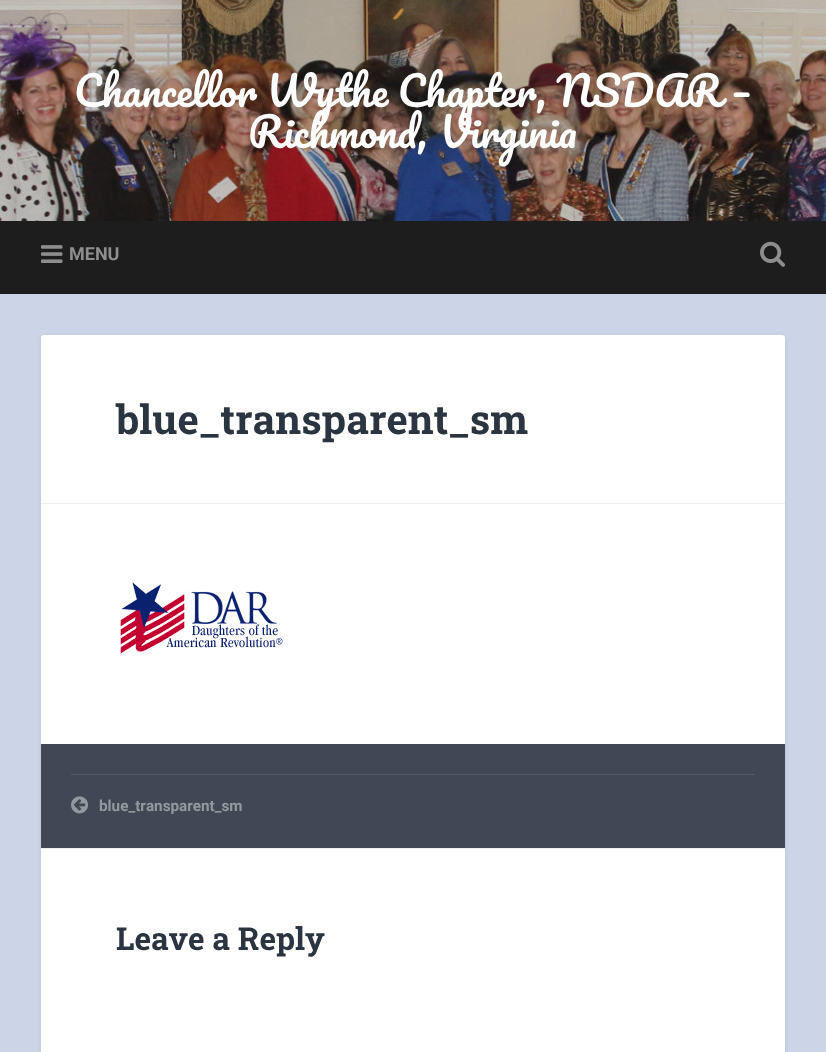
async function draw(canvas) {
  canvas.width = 826;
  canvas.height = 1052;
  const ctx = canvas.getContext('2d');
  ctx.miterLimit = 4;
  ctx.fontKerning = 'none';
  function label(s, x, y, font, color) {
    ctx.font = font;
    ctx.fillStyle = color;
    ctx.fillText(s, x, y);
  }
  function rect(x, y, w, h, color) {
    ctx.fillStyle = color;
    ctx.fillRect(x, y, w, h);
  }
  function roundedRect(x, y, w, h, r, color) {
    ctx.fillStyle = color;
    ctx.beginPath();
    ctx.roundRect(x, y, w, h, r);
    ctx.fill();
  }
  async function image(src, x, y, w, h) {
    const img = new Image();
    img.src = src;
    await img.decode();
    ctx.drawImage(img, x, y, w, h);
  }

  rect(0, 0, 826, 1052, '#ccd5e8');
  await image('assets/img1.png', 0, 0, 826, 221);
  ctx.wordSpacing = '-1px';
  label('Chancellor Wythe Chapter, NSDAR –', 74, 107, '40.5px Pacifico', '#fff');
  ctx.wordSpacing = '1px';
  label('Richmond, Virginia', 248, 148, '40.5px Pacifico', '#fff');
  rect(0, 221, 826, 73, '#1d1d1d');
  await image('assets/img2.png', 41, 245, 22, 18);
  ctx.wordSpacing = '0px';
  label('MENU', 69, 260, 'bold 18px Roboto', '#8e8e8e');
  await image('assets/img3.png', 760, 241, 25, 26);
  ctx.fillStyle = '#0000001a';
  ctx.filter = 'blur(2px)';
  ctx.beginPath();
  ctx.roundRect(41, 336, 744, 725, 3);
  ctx.fill();
  ctx.filter = 'none';
  roundedRect(41, 335, 744, 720, 3, '#fff');
  rect(41, 503, 744, 1, '#eee');
  label('blue_transparent_sm', 116, 434, 'bold 40.5px Roboto Slab', '#2b3542');
  await image('assets/img4.png', 120, 582, 163, 72);
  rect(41, 744, 744, 104, '#3f4854');
  rect(71, 774, 684, 1, '#525a65');
  await image('assets/img5.png', 71, 796, 17, 18);
  label('blue_transparent_sm', 99, 811, 'bold 15.25px Roboto', '#9499a0');
  rect(41, 848, 744, 1, '#eee');
  label('Leave a Reply', 116, 950, 'bold 31.5px Roboto Slab', '#2b3542');
}

draw(document.querySelector('canvas'));
